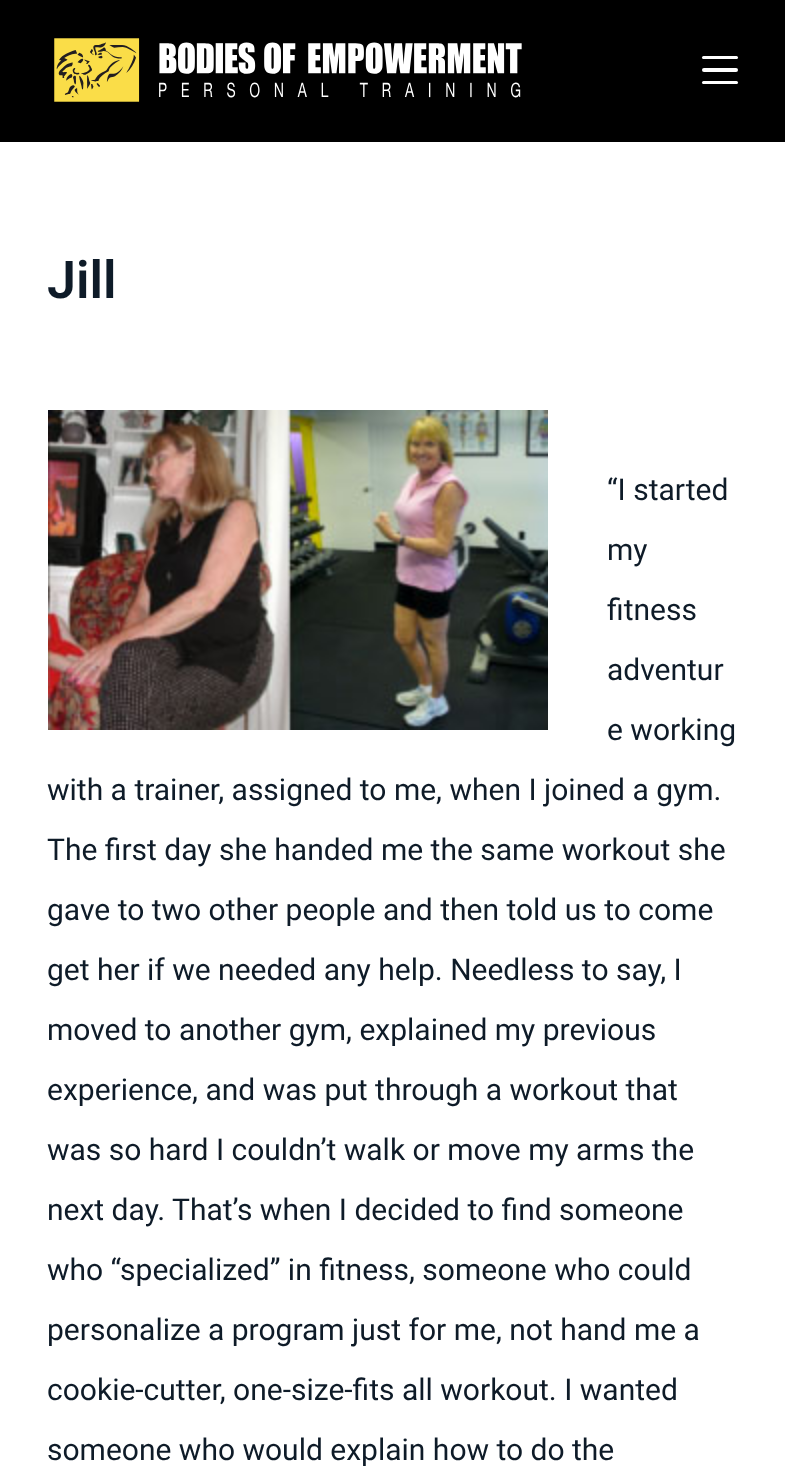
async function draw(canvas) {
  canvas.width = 785;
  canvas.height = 1482;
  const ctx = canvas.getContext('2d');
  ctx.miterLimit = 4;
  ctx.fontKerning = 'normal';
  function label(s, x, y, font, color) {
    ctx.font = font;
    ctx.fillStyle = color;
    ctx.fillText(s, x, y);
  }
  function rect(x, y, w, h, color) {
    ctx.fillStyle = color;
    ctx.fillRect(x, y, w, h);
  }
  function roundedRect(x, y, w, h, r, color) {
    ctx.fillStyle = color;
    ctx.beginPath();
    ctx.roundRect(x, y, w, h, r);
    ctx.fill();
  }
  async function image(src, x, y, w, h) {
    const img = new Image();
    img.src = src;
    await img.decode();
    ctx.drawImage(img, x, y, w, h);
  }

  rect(0, 0, 785, 1482, '#fff');
  rect(0, 0, 785, 142, '#000');
  await image('assets/img1.png', 54, 38, 468, 64);
  roundedRect(702, 56, 36, 3, 1.5, '#fff');
  roundedRect(702, 68, 36, 4, 2, '#fff');
  roundedRect(702, 81, 36, 3, 1.5, '#fff');
  label('Jill', 47, 298, '600 52px Roboto', '#0e1b28');
  await image('assets/img2.png', 48, 410, 500, 320);
  label('“I started', 607, 500, '30px Roboto', '#0e1b28');
  label('my', 607, 560, '30px Roboto', '#0e1b28');
  label('fitness', 607, 620, '30px Roboto', '#0e1b28');
  label('adventur', 607, 680, '30px Roboto', '#0e1b28');
  label('e working', 607, 740, '30px Roboto', '#0e1b28');
  label('with a trainer, assigned to me, when I joined a gym.', 47, 800, '30px Roboto', '#0e1b28');
  label('The first day she handed me the same workout she', 47, 860, '30px Roboto', '#0e1b28');
  label('gave to two other people and then told us to come', 47, 920, '30px Roboto', '#0e1b28');
  label('get her if we needed any help. Needless to say, I', 47, 980, '30px Roboto', '#0e1b28');
  label('moved to another gym, explained my previous', 47, 1040, '30px Roboto', '#0e1b28');
  label('experience, and was put through a workout that', 47, 1100, '30px Roboto', '#0e1b28');
  label('was so hard I couldn’t walk or move my arms the', 47, 1160, '30px Roboto', '#0e1b28');
  label('next day.', 47, 1220, '30px Roboto', '#0e1b28');
  label('That’s when I decided to find someone', 172, 1220, '30px Roboto', '#0e1b28');
  label('who “specialized” in fitness, someone who could', 47, 1280, '30px Roboto', '#0e1b28');
  label('personalize a program just for me, not hand me a', 47, 1340, '30px Roboto', '#0e1b28');
  label('cookie-cutter, one-size-fits all workout. I wanted', 47, 1400, '30px Roboto', '#0e1b28');
  label('someone who would explain how to do the', 47, 1460, '30px Roboto', '#0e1b28');
}

draw(document.querySelector('canvas'));
